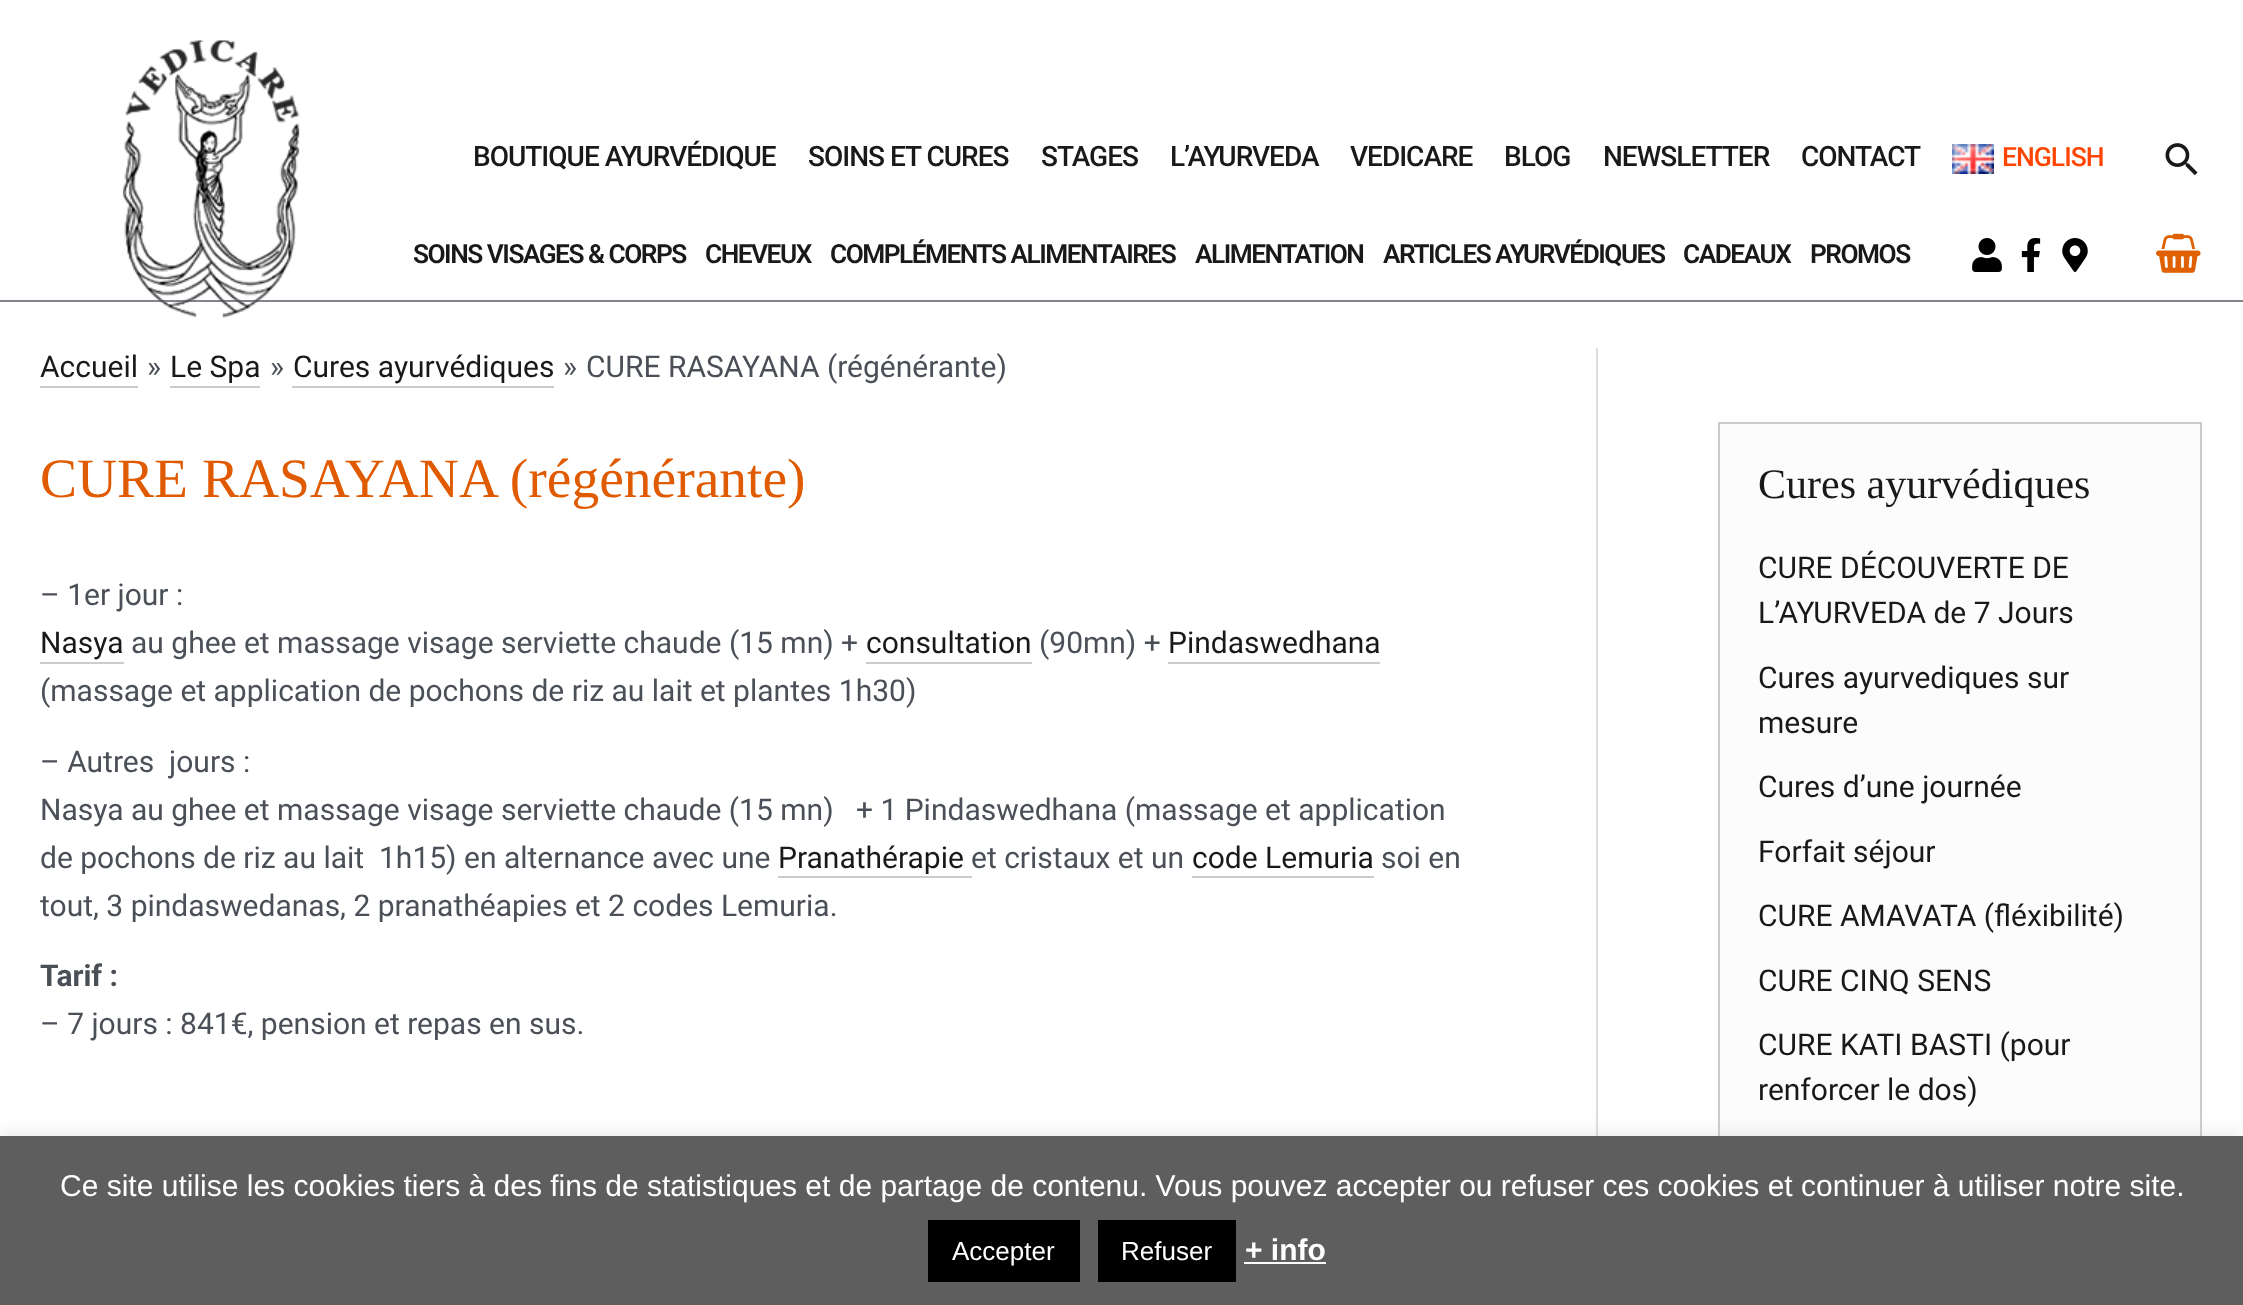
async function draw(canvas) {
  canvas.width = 2243;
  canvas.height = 1305;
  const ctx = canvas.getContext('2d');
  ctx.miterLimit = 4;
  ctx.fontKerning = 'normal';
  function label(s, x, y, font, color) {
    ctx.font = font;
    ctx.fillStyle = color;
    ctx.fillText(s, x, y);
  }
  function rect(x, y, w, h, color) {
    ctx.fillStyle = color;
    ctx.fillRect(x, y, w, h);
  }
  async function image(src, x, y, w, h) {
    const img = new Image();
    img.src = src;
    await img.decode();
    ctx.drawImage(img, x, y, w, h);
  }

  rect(0, 0, 2243, 1305, '#fff');
  await image('assets/img1.png', 122, 40, 178, 278);
  ctx.letterSpacing = '-1px';
  label('BOUTIQUE AYURVÉDIQUE', 473, 166, '500 28px Roboto', '#191919');
  label('SOINS ET CURES', 808, 166, '500 28px Roboto', '#191919');
  label('STAGES', 1041, 166, '500 28px Roboto', '#191919');
  label('L’AYURVEDA', 1170, 166, '500 28px Roboto', '#191919');
  label('VEDICARE', 1350, 166, '500 28px Roboto', '#191919');
  label('BLOG', 1504, 166, '500 28px Roboto', '#191919');
  label('NEWSLETTER', 1603, 166, '500 28px Roboto', '#191919');
  label('CONTACT', 1801, 166, '500 28px Roboto', '#191919');
  await image('assets/img2.png', 1952, 144, 42, 30);
  label('ENGLISH', 2002, 166, '500 26.5px Roboto', '#ff4500');
  await image('assets/img3.png', 2165, 143, 33, 33);
  rect(0, 300, 2243, 2, '#4c5059b3');
  ctx.letterSpacing = '-1.5px';
  label('SOINS VISAGES & CORPS', 413, 263, '600 26.25px Roboto', '#191919');
  label('CHEVEUX', 705, 263, '600 26.25px Roboto', '#191919');
  label('COMPLÉMENTS ALIMENTAIRES', 830, 263, '600 26.25px Roboto', '#191919');
  label('ALIMENTATION', 1195, 263, '600 26.25px Roboto', '#191919');
  label('ARTICLES AYURVÉDIQUES', 1383, 263, '600 26.25px Roboto', '#191919');
  label('CADEAUX', 1683, 263, '600 26.25px Roboto', '#191919');
  label('PROMOS', 1810, 263, '600 26.25px Roboto', '#191919');
  await image('assets/img4.png', 1972, 238, 30, 34);
  await image('assets/img5.png', 2021, 238, 20, 34);
  await image('assets/img6.png', 2062, 238, 26, 34);
  await image('assets/img7.png', 2156, 233, 45, 40);
  rect(1596, 348, 2, 788, '#ddd');
  ctx.letterSpacing = '0px';
  label('Accueil', 40, 377, '30px Roboto', '#191919');
  rect(40, 386, 98, 2, '#ccc');
  label('»', 147, 377, '30px Roboto', '#4b4f58');
  label('Le Spa', 170, 377, '30px Roboto', '#191919');
  rect(170, 386, 90, 2, '#ccc');
  label('»', 270, 377, '30px Roboto', '#4b4f58');
  label('Cures ayurvédiques', 293, 377, '30px Roboto', '#191919');
  rect(292, 386, 262, 2, '#ccc');
  label('»', 563, 377, '30px Roboto', '#4b4f58');
  label('CURE RASAYANA (régénérante)', 586, 377, '30px Roboto', '#4b4f58');
  label('CURE RASAYANA (régénérante)', 40, 497, '55.5px Liberation Serif', '#e05a00');
  label('– 1er jour :', 40, 605, '30px Roboto', '#4b4f58');
  label('Nasya', 40, 653, '30px Roboto', '#191919');
  rect(40, 662, 84, 2, '#ccc');
  label('au ghee et massage visage serviette chaude (15 mn) +', 131, 653, '30px Roboto', '#4b4f58');
  label('consultation', 866, 653, '30px Roboto', '#191919');
  rect(866, 662, 166, 2, '#ccc');
  label('(90mn) +', 1039, 653, '30px Roboto', '#4b4f58');
  label('Pindaswedhana', 1168, 653, '30px Roboto', '#191919');
  rect(1168, 662, 212, 2, '#ccc');
  label('(massage et application de pochons de riz au lait et plantes 1h30)', 40, 701, '30px Roboto', '#4b4f58');
  label('– Autres  jours :', 40, 772, '30px Roboto', '#4b4f58');
  label('Nasya au ghee et massage visage serviette chaude (15 mn)   + 1 Pindaswedhana (massage et application', 40, 820, '30px Roboto', '#4b4f58');
  label('de pochons de riz au lait  1h15) en alternance avec une', 40, 868, '30px Roboto', '#4b4f58');
  label('Pranathérapie', 778, 868, '30px Roboto', '#191919');
  rect(778, 876, 194, 2, '#ccc');
  label('et cristaux et un', 971, 868, '30px Roboto', '#4b4f58');
  label('code Lemuria', 1192, 868, '30px Roboto', '#191919');
  rect(1192, 876, 182, 2, '#ccc');
  label('soi en', 1381, 868, '30px Roboto', '#4b4f58');
  label('tout, 3 pindaswedanas, 2 pranathéapies et 2 codes Lemuria.', 40, 916, '30px Roboto', '#4b4f58');
  label('Tarif :', 40, 986, 'bold 30px Roboto', '#4b4f58');
  label('– 7 jours : 841€, pension et repas en sus.', 40, 1034, '30px Roboto', '#4b4f58');
  rect(1720, 424, 480, 712, '#fcfcfc');
  ctx.strokeStyle = '#ccc';
  ctx.lineWidth = 2;
  ctx.strokeRect(1719, 423, 482, 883);
  label('Cures ayurvédiques', 1758, 498, '42px Liberation Serif', '#191919');
  label('CURE DÉCOUVERTE DE', 1758, 578, '30px Roboto', '#191919');
  label('L’AYURVEDA de 7 Jours', 1758, 623, '30px Roboto', '#191919');
  label('Cures ayurvediques sur', 1758, 688, '30px Roboto', '#191919');
  label('mesure', 1758, 733, '30px Roboto', '#191919');
  label('Cures d’une journée', 1758, 797, '30px Roboto', '#191919');
  label('Forfait séjour', 1758, 862, '30px Roboto', '#191919');
  label('CURE AMAVATA (fléxibilité)', 1758, 926, '30px Roboto', '#191919');
  label('CURE CINQ SENS', 1758, 991, '30px Roboto', '#191919');
  label('CURE KATI BASTI (pour', 1758, 1055, '30px Roboto', '#191919');
  label('renforcer le dos)', 1758, 1100, '30px Roboto', '#191919');
  ctx.fillStyle = '#acabab4d';
  ctx.filter = 'blur(10px)';
  ctx.beginPath();
  ctx.rect(0, 1134, 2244, 170);
  ctx.fill();
  ctx.filter = 'none';
  rect(0, 1136, 2243, 169, '#5e5e5e');
  label('Ce site utilise les cookies tiers à des fins de statistiques et de partage de contenu. Vous pouvez accepter ou refuser ces cookies et continuer à utiliser notre site.', 60, 1196, '30px Liberation Sans', '#fff');
  rect(928, 1220, 152, 62, '#000');
  label('Accepter', 952, 1260, '26px Liberation Sans', '#fff');
  rect(1098, 1220, 138, 62, '#000');
  label('Refuser', 1121, 1260, '26px Liberation Sans', '#fff');
  label('+ info', 1245, 1260, 'bold 30px Liberation Sans', '#fff');
  rect(1244, 1262, 82, 2, '#fcfcfc');
}

draw(document.querySelector('canvas'));
